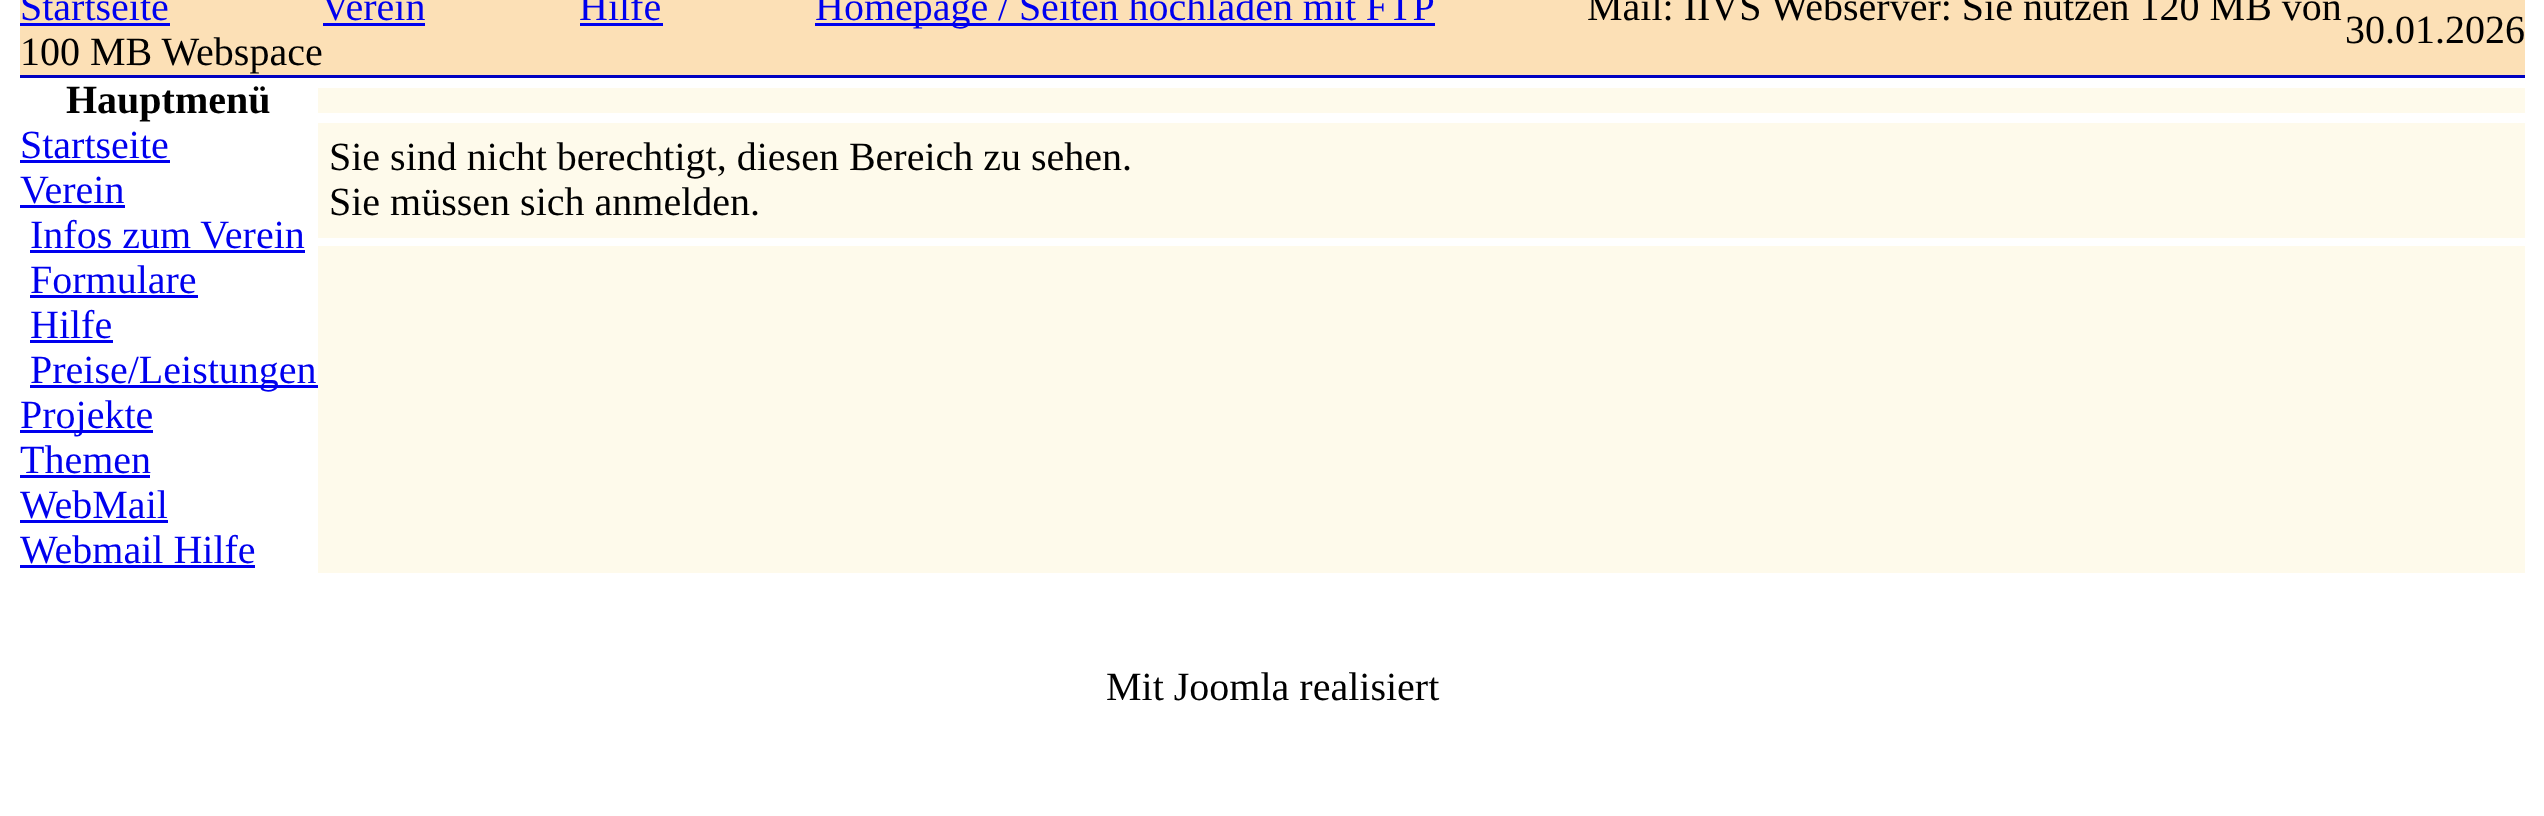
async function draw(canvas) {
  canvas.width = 2544;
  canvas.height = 816;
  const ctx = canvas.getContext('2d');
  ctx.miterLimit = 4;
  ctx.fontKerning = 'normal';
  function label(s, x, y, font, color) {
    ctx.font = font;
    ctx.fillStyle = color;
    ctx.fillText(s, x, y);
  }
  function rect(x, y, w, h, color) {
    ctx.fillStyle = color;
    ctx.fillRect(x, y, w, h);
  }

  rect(0, 0, 2544, 816, '#fff');
  rect(20, 0, 2505, 75, '#fce0b6');
  rect(20, 75, 2505, 3, '#0000c0');
  label('Startseite', 20, 20, '40px Liberation Serif', '#00e');
  rect(20, 23, 150, 3, '#00e');
  label('Verein', 321, 20, '40px Liberation Serif', '#00e');
  rect(323, 23, 102, 3, '#00e');
  label('Hilfe', 579, 20, '40px Liberation Serif', '#00e');
  rect(580, 23, 83, 3, '#00e');
  rect(815, 23, 620, 3, '#00e');
  ctx.wordSpacing = '-0.25px';
  label('Homepage / Seiten hochladen mit FTP', 815, 20, '40px Liberation Serif', '#00e');
  ctx.wordSpacing = '0px';
  label('Mail: IIVS Webserver: Sie nutzen 120 MB von', 1587, 20, '40px Liberation Serif', '#000');
  label('100 MB Webspace', 20, 65, '40px Liberation Serif', '#000');
  label('30.01.2026', 2345, 43, '40px Liberation Serif', '#000');
  label('Hauptmenü', 66, 113, 'bold 40px Liberation Serif', '#000');
  label('Startseite', 20, 158, '40px Liberation Serif', '#00e');
  rect(20, 160, 150, 3, '#00e');
  label('Verein', 20, 203, '40px Liberation Serif', '#00e');
  rect(20, 205, 105, 3, '#00e');
  label('Infos zum Verein', 30, 248, '40px Liberation Serif', '#00e');
  rect(30, 250, 275, 3, '#00e');
  label('Formulare', 30, 293, '40px Liberation Serif', '#00e');
  rect(30, 295, 168, 3, '#00e');
  label('Hilfe', 30, 338, '40px Liberation Serif', '#00e');
  rect(30, 340, 83, 3, '#00e');
  rect(30, 385, 288, 3, '#00e');
  label('Preise/Leistungen', 30, 383, '40px Liberation Serif', '#00e');
  rect(20, 430, 133, 3, '#00e');
  label('Projekte', 20, 428, '40px Liberation Serif', '#00e');
  label('Themen', 20, 473, '40px Liberation Serif', '#00e');
  rect(20, 475, 130, 3, '#00e');
  label('WebMail', 20, 518, '40px Liberation Serif', '#00e');
  rect(20, 520, 148, 3, '#00e');
  label('Webmail Hilfe', 20, 563, '40px Liberation Serif', '#00e');
  rect(20, 565, 235, 3, '#00e');
  rect(318, 88, 2207, 485, '#fefaeb');
  rect(318, 113, 2207, 10, '#fff');
  label('Sie sind nicht berechtigt, diesen Bereich zu sehen.', 329, 170, '40px Liberation Serif', '#000');
  label('Sie müssen sich anmelden.', 329, 215, '40px Liberation Serif', '#000');
  rect(318, 238, 2207, 8, '#fff');
  label('Mit Joomla realisiert', 1106, 700, '40px Liberation Serif', '#000');
}

draw(document.querySelector('canvas'));
